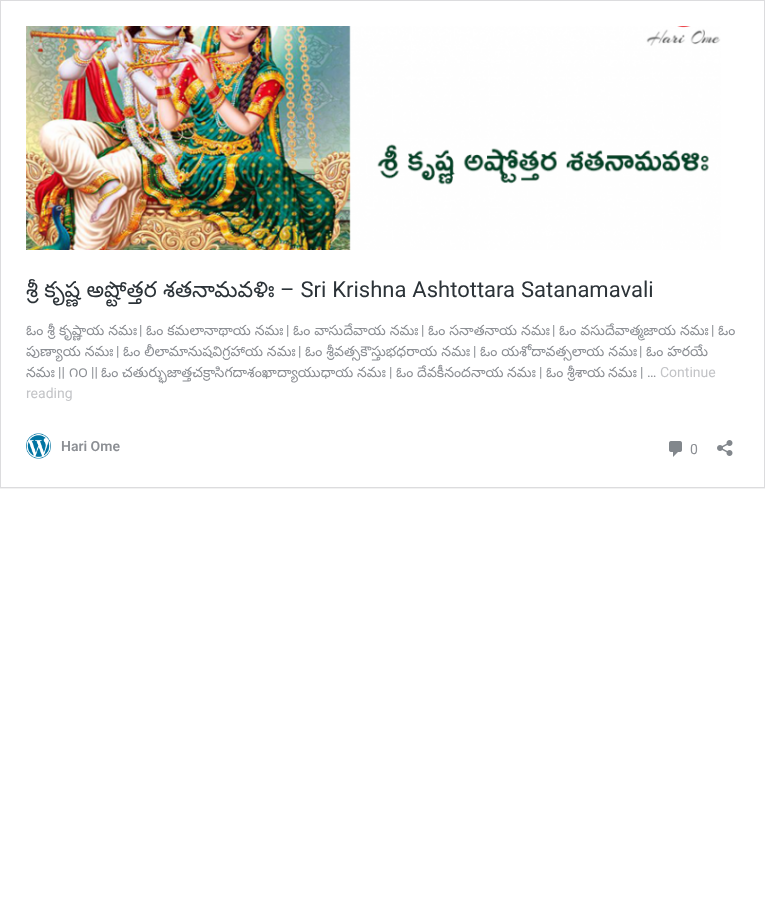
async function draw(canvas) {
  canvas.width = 765;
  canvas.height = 908;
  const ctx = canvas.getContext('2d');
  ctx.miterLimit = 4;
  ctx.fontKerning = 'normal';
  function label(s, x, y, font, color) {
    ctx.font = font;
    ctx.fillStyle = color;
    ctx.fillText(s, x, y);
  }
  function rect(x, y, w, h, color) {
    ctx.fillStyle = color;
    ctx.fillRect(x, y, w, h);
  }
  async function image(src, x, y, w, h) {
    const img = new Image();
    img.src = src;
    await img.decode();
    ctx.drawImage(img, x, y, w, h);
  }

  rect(0, 0, 765, 908, '#fff');
  ctx.save();
  ctx.beginPath();
  ctx.rect(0, 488, 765, 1);
  ctx.clip();
  ctx.fillStyle = '#0000000d';
  ctx.filter = 'blur(0.5px)';
  ctx.beginPath();
  ctx.rect(0, 1, 765, 488);
  ctx.fill();
  ctx.filter = 'none';
  ctx.restore();
  ctx.strokeStyle = '#dcdcde';
  ctx.strokeRect(0.5, 0.5, 764, 487);
  await image('assets/img1.png', 26, 26, 695, 224);
  label('శ్రీ కృష్ణ అష్టోత్తర శతనామవళిః', 26, 297, '22px Noto Sans Telugu', '#2c3338');
  ctx.wordSpacing = '0.5px';
  label('– Sri Krishna Ashtottara Satanamavali', 280, 297, '22px Roboto', '#2c3338');
  ctx.wordSpacing = '0px';
  label('ఓం శ్రీ కృష్ణాయ నమః', 26, 335, '14px Noto Sans Telugu', '#8c8f94');
  label('|', 139, 335, '14px Roboto', '#8c8f94');
  label('ఓం కమలానాథాయ నమః', 146, 335, '14px Noto Sans Telugu', '#8c8f94');
  label('|', 286, 335, '14px Roboto', '#8c8f94');
  label('ఓం వాసుదేవాయ నమః', 293, 335, '14px Noto Sans Telugu', '#8c8f94');
  label('|', 421, 335, '14px Roboto', '#8c8f94');
  label('ఓం సనాతనాయ నమః', 428, 335, '14px Noto Sans Telugu', '#8c8f94');
  label('|', 552, 335, '14px Roboto', '#8c8f94');
  label('ఓం వసుదేవాత్మజాయ నమః', 559, 335, '14px Noto Sans Telugu', '#8c8f94');
  label('|', 711, 335, '14px Roboto', '#8c8f94');
  label('ఓం', 718, 335, '14px Noto Sans Telugu', '#8c8f94');
  label('పుణ్యాయ నమః', 26, 356, '14px Noto Sans Telugu', '#8c8f94');
  label('|', 116, 356, '14px Roboto', '#8c8f94');
  label('ఓం లీలామానుషవిగ్రహాయ నమః', 123, 356, '14px Noto Sans Telugu', '#8c8f94');
  label('|', 298, 356, '14px Roboto', '#8c8f94');
  label('ఓం శ్రీవత్సకౌస్తుభధరాయ నమః', 305, 356, '14px Noto Sans Telugu', '#8c8f94');
  label('|', 473, 356, '14px Roboto', '#8c8f94');
  label('ఓం యశోదావత్సలాయ నమః', 480, 356, '14px Noto Sans Telugu', '#8c8f94');
  label('|', 639, 356, '14px Roboto', '#8c8f94');
  label('ఓం హరయే', 646, 356, '14px Noto Sans Telugu', '#8c8f94');
  label('నమః', 26, 377, '14px Noto Sans Telugu', '#8c8f94');
  label('||', 58, 377, '14px Roboto', '#8c8f94');
  label('౧౦', 69, 377, '14px Noto Sans Telugu', '#8c8f94');
  label('||', 91, 377, '14px Roboto', '#8c8f94');
  label('ఓం', 101, 377, '14px Noto Sans Telugu', '#8c8f94');
  label('చతుర్భుజాత్తచక్రాసిగదాశంఖాద్యాయుధాయ', 122, 377, '14px Noto Sans Telugu', '#8c8f94');
  label('నమః', 357, 377, '14px Noto Sans Telugu', '#8c8f94');
  label('|', 389, 377, '14px Roboto', '#8c8f94');
  label('ఓం', 396, 377, '14px Noto Sans Telugu', '#8c8f94');
  label('దేవకీనందనాయ', 417, 377, '14px Noto Sans Telugu', '#8c8f94');
  label('నమః', 507, 377, '14px Noto Sans Telugu', '#8c8f94');
  label('|', 539, 377, '14px Roboto', '#8c8f94');
  label('ఓం', 546, 377, '14px Noto Sans Telugu', '#8c8f94');
  label('శ్రీశాయ', 567, 377, '14px Noto Sans Telugu', '#8c8f94');
  label('నమః', 608, 377, '14px Noto Sans Telugu', '#8c8f94');
  label('| …', 640, 377, '14px Roboto', '#8c8f94');
  label('Continue', 660, 377, '14px Roboto', '#c3c4c7');
  label('reading', 26, 398, '14px Roboto', '#c3c4c7');
  await image('assets/img2.png', 26, 433, 25, 26);
  label('Hari Ome', 61, 451, '600 14px Roboto', '#8c8f94');
  await image('assets/img3.png', 669, 441, 13, 16);
  label('0', 690, 454, '14px Roboto', '#8c8f94');
  await image('assets/img4.png', 717, 440, 16, 16);
}

draw(document.querySelector('canvas'));
